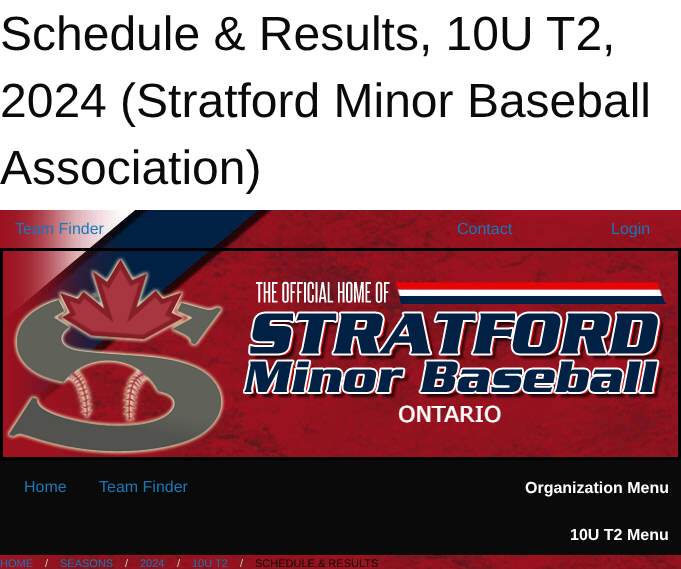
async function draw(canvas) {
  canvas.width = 681;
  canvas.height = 569;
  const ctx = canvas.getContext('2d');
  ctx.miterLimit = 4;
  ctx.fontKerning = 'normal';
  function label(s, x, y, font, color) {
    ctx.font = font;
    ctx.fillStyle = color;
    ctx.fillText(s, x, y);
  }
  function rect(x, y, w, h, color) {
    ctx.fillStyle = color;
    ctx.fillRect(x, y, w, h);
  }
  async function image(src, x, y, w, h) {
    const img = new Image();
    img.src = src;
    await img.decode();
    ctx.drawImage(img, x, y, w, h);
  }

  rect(0, 0, 681, 569, '#fff');
  label('Schedule & Results, 10U T2,', 0, 50, '48px Liberation Sans', '#0a0a0a');
  label('2024 (Stratford Minor Baseball', 0, 117, '48px Liberation Sans', '#0a0a0a');
  label('Association)', 0, 184, '48px Liberation Sans', '#0a0a0a');
  rect(0, 210, 3, 359, '#9a121f');
  await image('assets/img1.png', 3, 210, 678, 359);
  label('Team Finder', 15, 234, '16px Liberation Sans', '#1779ba');
  label('Contact', 457, 234, '16px Liberation Sans', '#1779ba');
  label('Login', 611, 234, '16px Liberation Sans', '#1779ba');
  ctx.strokeStyle = '#000';
  ctx.lineWidth = 3;
  ctx.strokeRect(1.5, 249.5, 678, 209);
  await image('assets/img2.png', 5, 256, 221, 200);
  await image('assets/img3.png', 243, 281, 423, 142);
  rect(0, 460, 681, 95, '#0a0a0a');
  label('Home', 24, 492, '16px Liberation Sans', '#1779ba');
  label('Team Finder', 99, 492, '16px Liberation Sans', '#1779ba');
  label('Organization Menu', 525, 493, 'bold 16px Liberation Sans', '#fefefe');
  label('10U T2 Menu', 570, 540, 'bold 16px Liberation Sans', '#fefefe');
  label('HOME', 0, 567, '11px Liberation Sans', '#1779ba');
  label('/', 45, 567, '11px Liberation Sans', '#cacaca');
  label('SEASONS', 60, 567, '11px Liberation Sans', '#1779ba');
  label('/', 125, 567, '11px Liberation Sans', '#cacaca');
  label('2024', 140, 567, '11px Liberation Sans', '#1779ba');
  label('/', 177, 567, '11px Liberation Sans', '#cacaca');
  label('10U T2', 192, 567, '11px Liberation Sans', '#1779ba');
  label('/', 240, 567, '11px Liberation Sans', '#cacaca');
  label('SCHEDULE & RESULTS', 255, 567, '11px Liberation Sans', '#0a0a0a');
}

draw(document.querySelector('canvas'));
